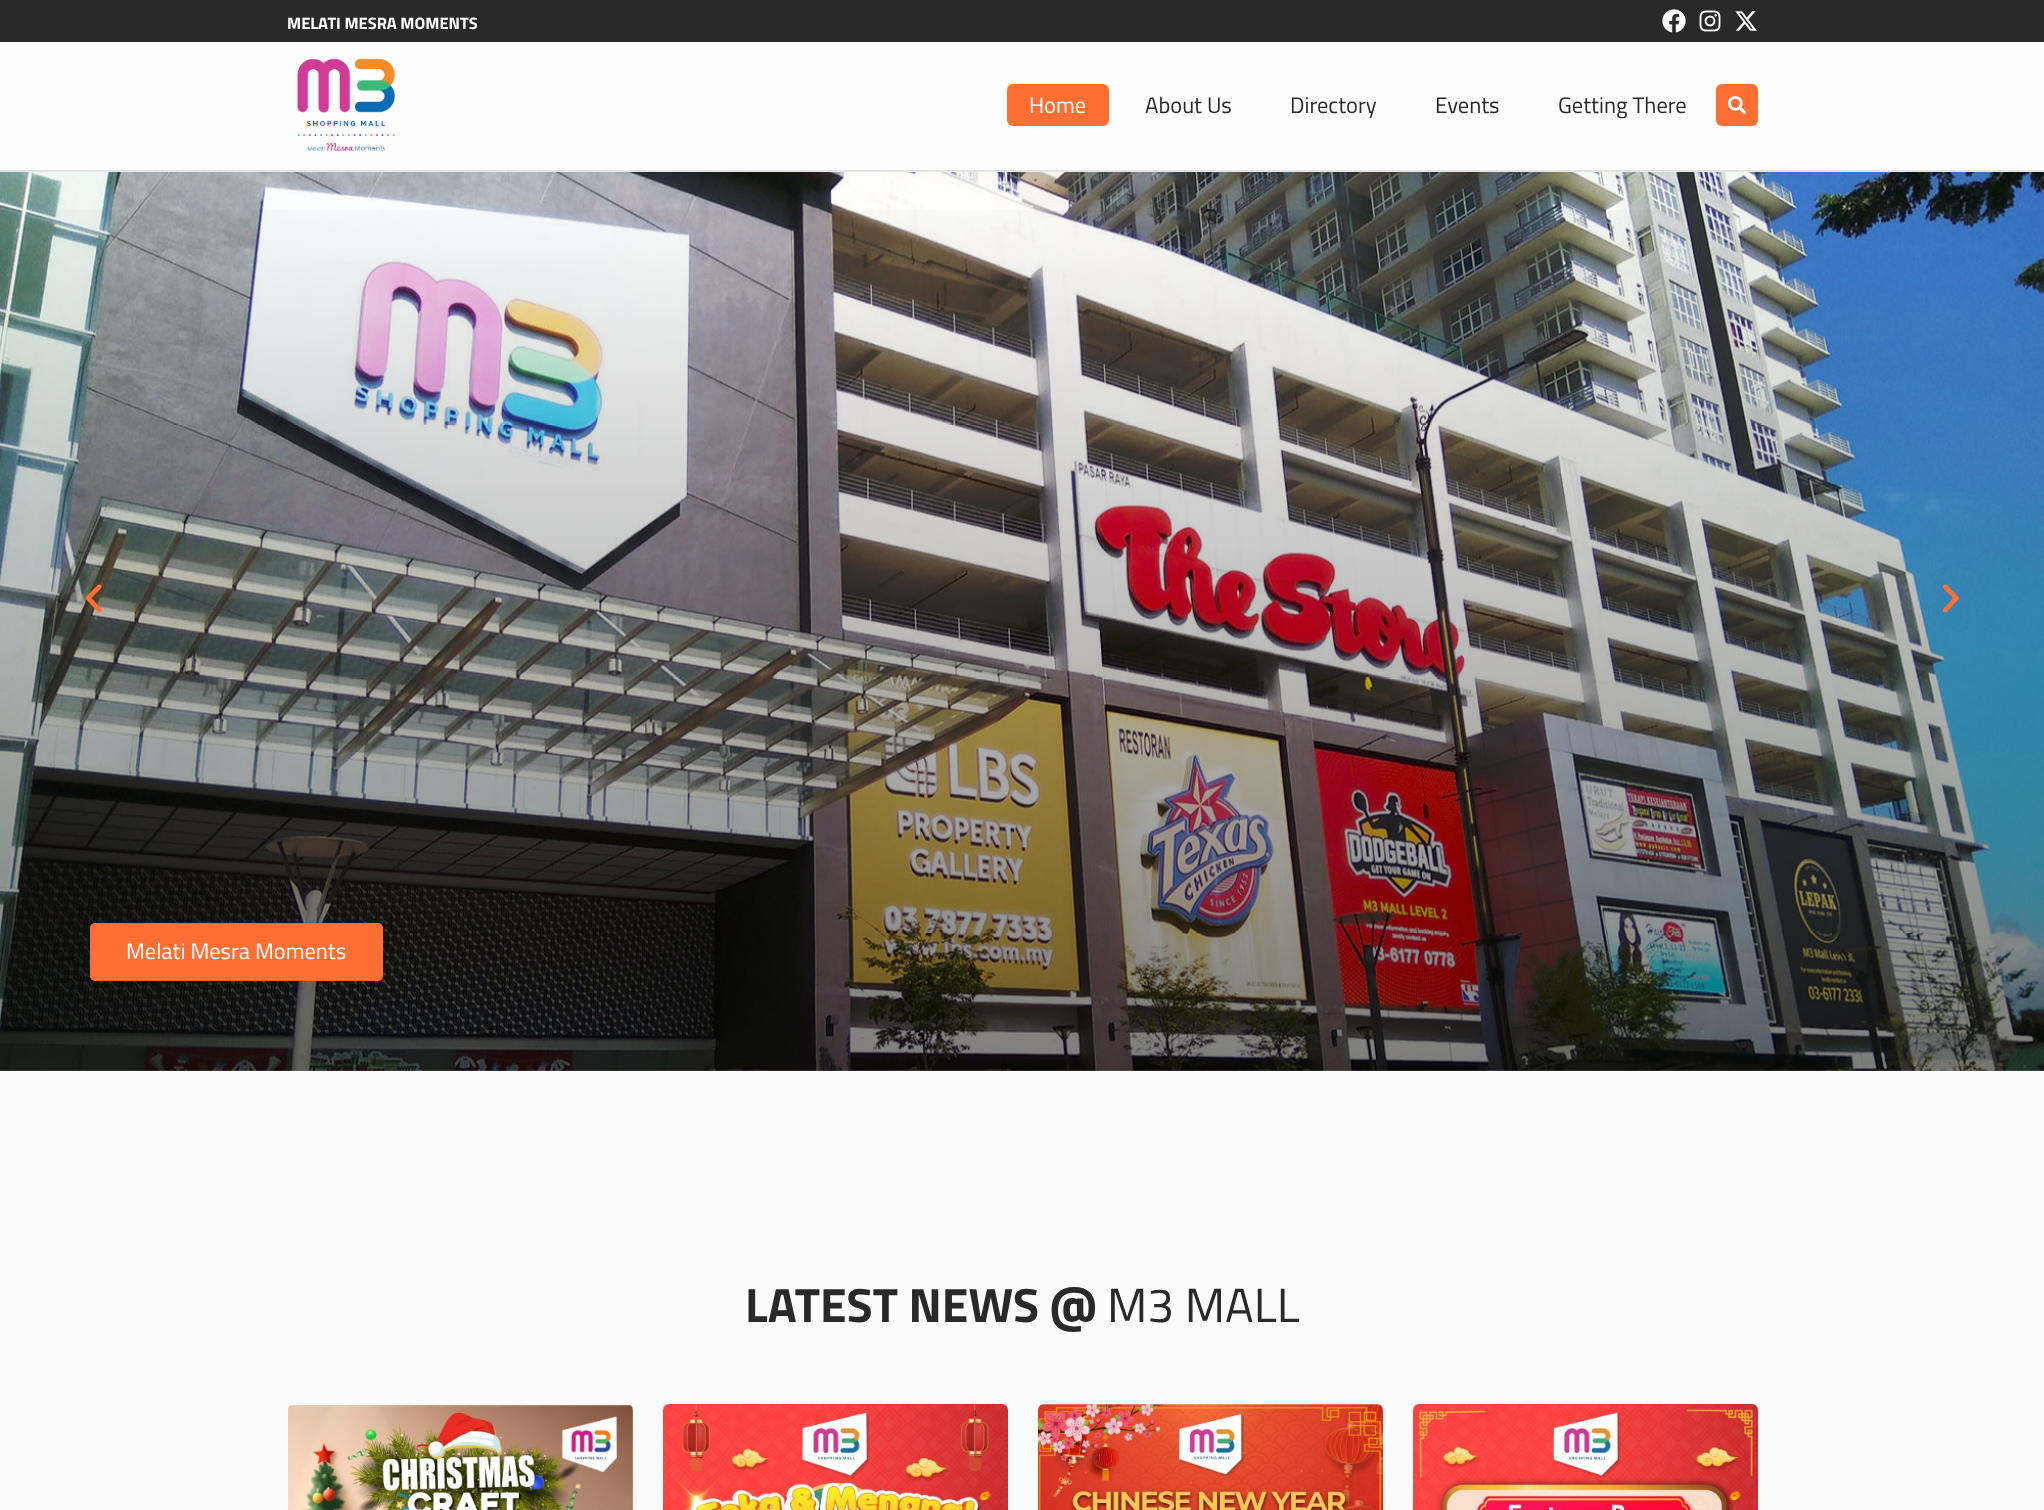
async function draw(canvas) {
  canvas.width = 2044;
  canvas.height = 1510;
  const ctx = canvas.getContext('2d');
  ctx.miterLimit = 4;
  ctx.fontKerning = 'normal';
  function label(s, x, y, font, color) {
    ctx.font = font;
    ctx.fillStyle = color;
    ctx.fillText(s, x, y);
  }
  function rect(x, y, w, h, color) {
    ctx.fillStyle = color;
    ctx.fillRect(x, y, w, h);
  }
  function roundedRect(x, y, w, h, r, color) {
    ctx.fillStyle = color;
    ctx.beginPath();
    ctx.roundRect(x, y, w, h, r);
    ctx.fill();
  }
  async function image(src, x, y, w, h) {
    const img = new Image();
    img.src = src;
    await img.decode();
    ctx.drawImage(img, x, y, w, h);
  }
  let gradient;

  rect(0, 0, 2044, 1510, '#fbfbfb');
  rect(0, 0, 2044, 42, '#292929');
  label('MELATI MESRA MOMENTS', 287, 29, 'bold 16.5px Titillium Web', '#fff');
  await image('assets/img1.png', 1662, 9, 24, 24);
  await image('assets/img2.png', 1699, 10, 22, 22);
  await image('assets/img3.png', 1735, 11, 22, 20);
  rect(0, 42, 2044, 128, '#fefefe');
  rect(0, 170, 2044, 2, '#e4e4e4');
  await image('assets/img4.png', 291, 58, 105, 96);
  roundedRect(1007, 84, 102, 42, 6, '#ff6f33');
  label('Home', 1029, 113, '22.5px Titillium Web', '#fff');
  label('About Us', 1145, 113, '22.5px Titillium Web', '#292929');
  label('Directory', 1290, 113, '22.5px Titillium Web', '#292929');
  label('Events', 1435, 113, '22.5px Titillium Web', '#292929');
  label('Getting There', 1558, 113, '22.5px Titillium Web', '#292929');
  roundedRect(1716, 84, 42, 42, 6, '#ff6f33');
  await image('assets/img5.png', 1728, 96, 18, 18);
  await image('assets/img8.png', 0, 172, 2044, 899);
  gradient = ctx.createLinearGradient(1022, 171, 1022, 1071);
  gradient.addColorStop(0, '#00000000');
  gradient.addColorStop(1, '#00000080');
  ctx.fillStyle = gradient;
  ctx.fillRect(0, 210, 2044, 861);
  await image('assets/img6.png', 86, 584, 16, 29);
  await image('assets/img7.png', 1942, 584, 17, 29);
  roundedRect(90, 923, 293, 58, 5, '#ff6f33');
  label('Melati Mesra Moments', 126, 959, '22.5px Titillium Web', '#fff');
  label('LATEST NEWS @', 745, 1322, 'bold 48px Titillium Web', '#292929');
  label('M3 MALL', 1107, 1322, '48px Titillium Web', '#292929');
  await image('assets/img9.png', 288, 1404, 345, 106);
  await image('assets/img10.png', 663, 1404, 345, 106);
  await image('assets/img11.png', 1038, 1404, 345, 106);
  await image('assets/img12.png', 1413, 1404, 345, 106);
}

draw(document.querySelector('canvas'));
